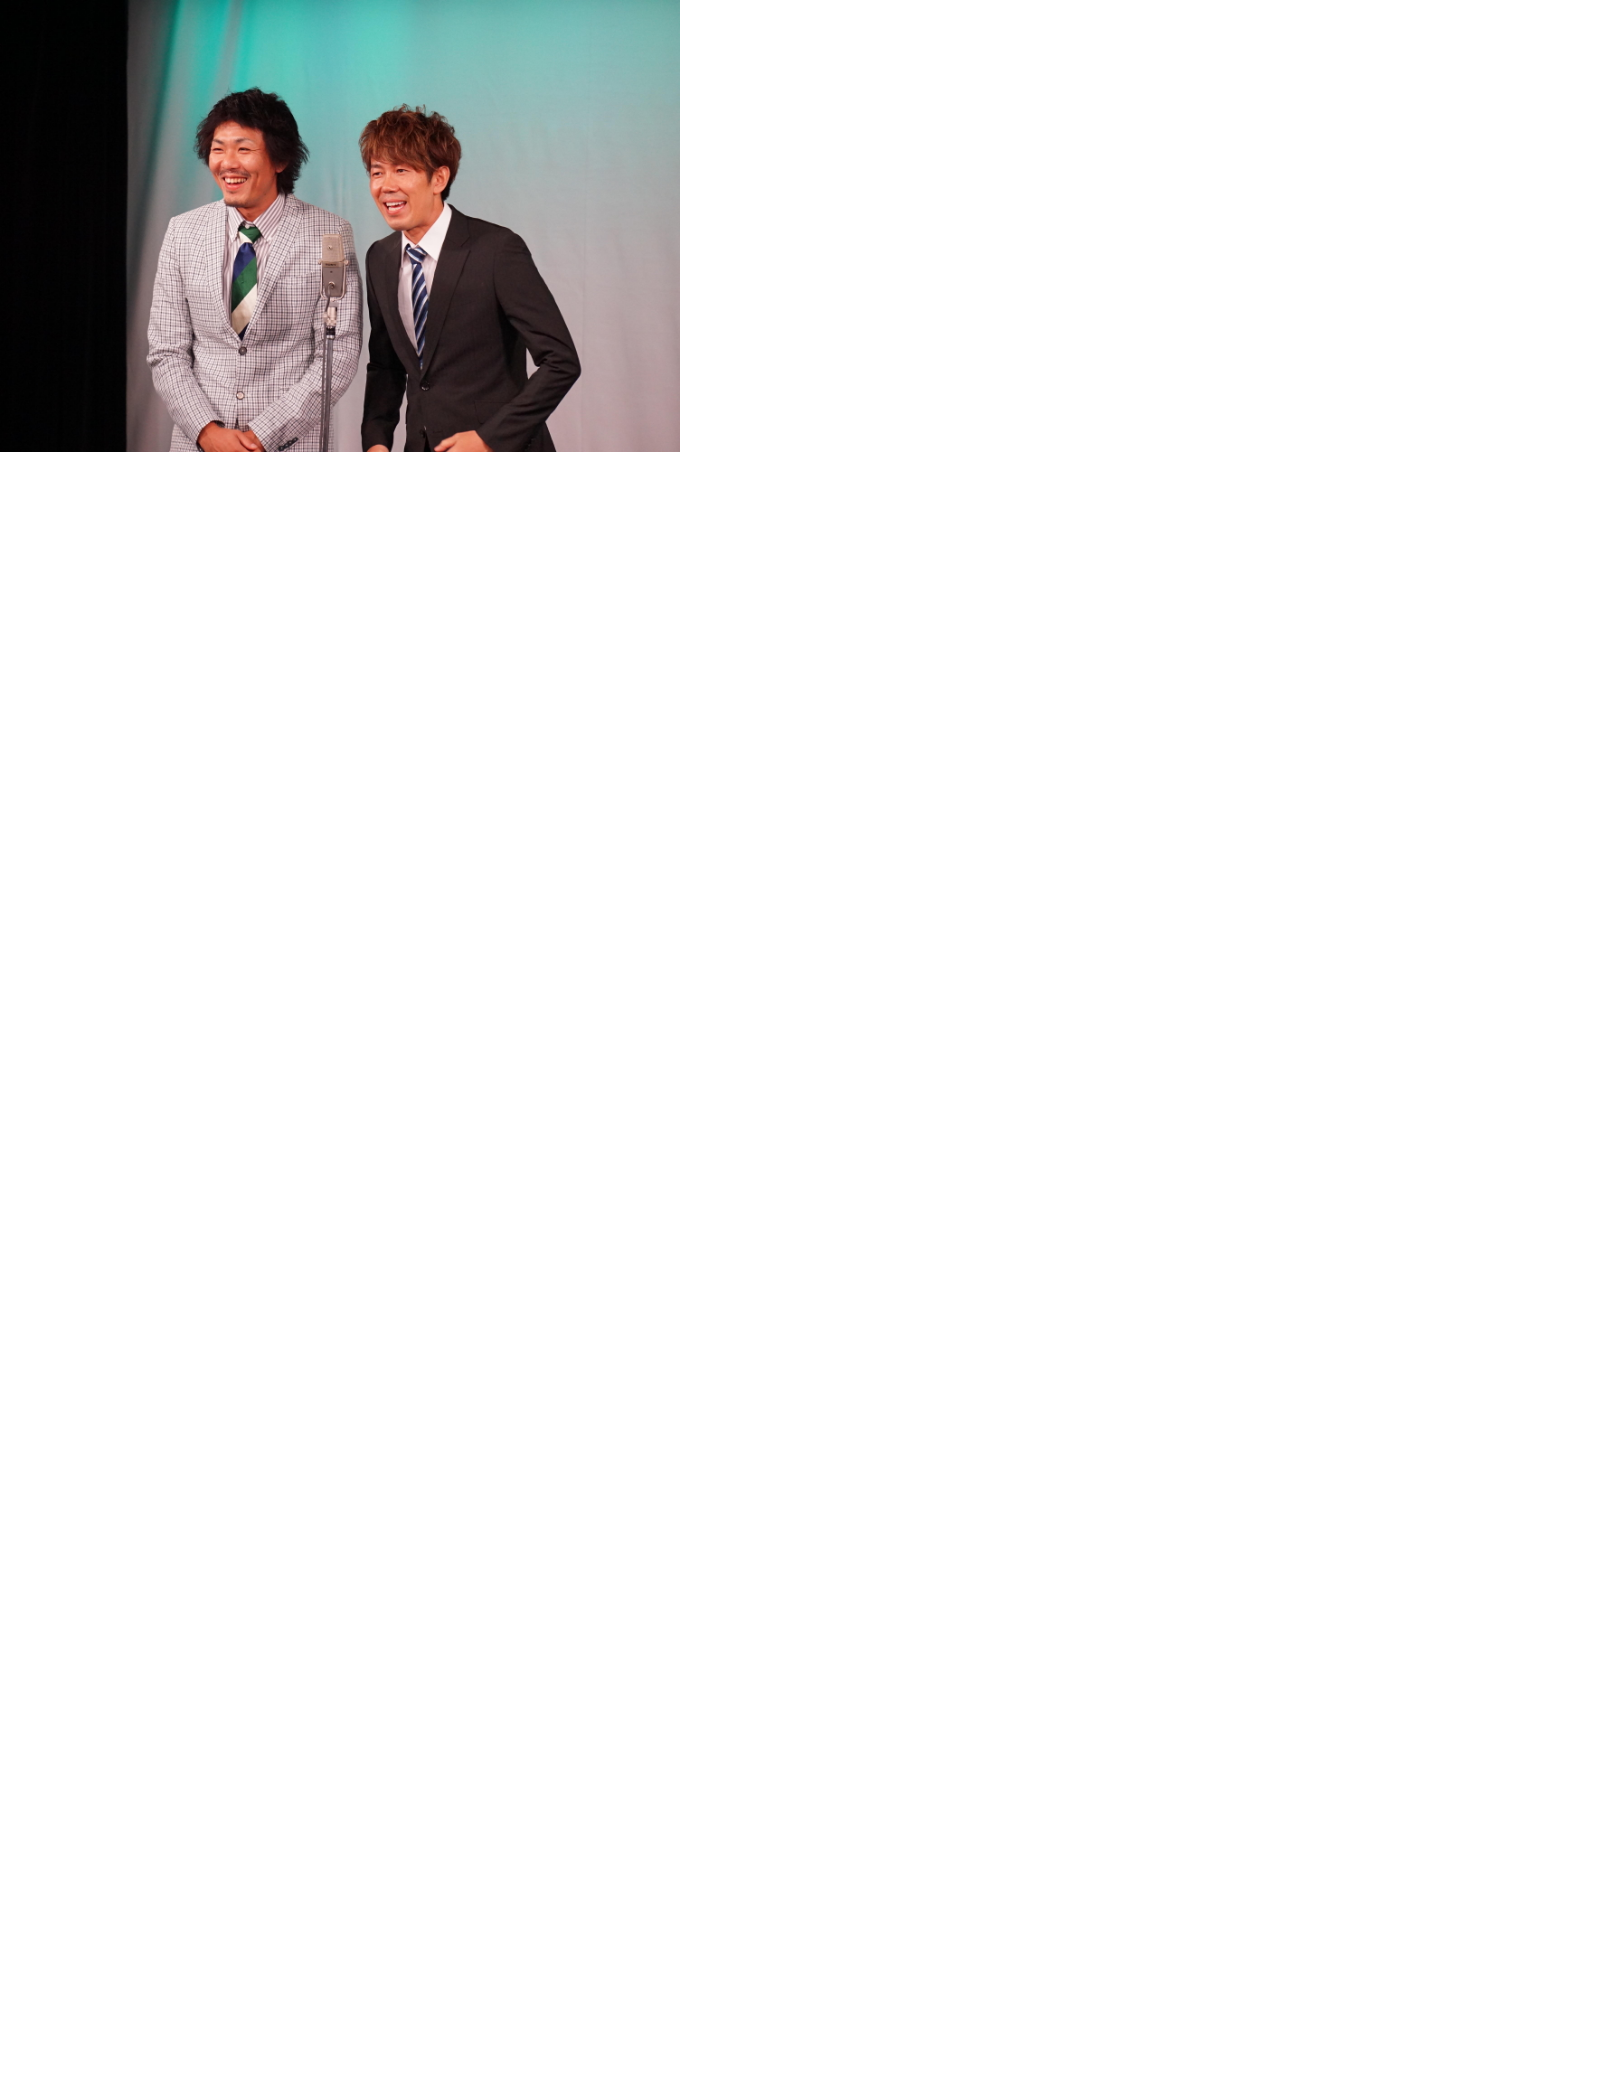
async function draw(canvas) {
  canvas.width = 1597;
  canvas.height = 2086;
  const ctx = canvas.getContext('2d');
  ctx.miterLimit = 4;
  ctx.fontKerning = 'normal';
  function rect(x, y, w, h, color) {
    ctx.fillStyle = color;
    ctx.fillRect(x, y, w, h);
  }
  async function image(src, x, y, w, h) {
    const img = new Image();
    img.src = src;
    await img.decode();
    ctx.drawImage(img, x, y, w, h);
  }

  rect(0, 0, 1597, 2086, '#fff');
  await image('assets/img1.png', 0, 0, 680, 452);
}

draw(document.querySelector('canvas'));
